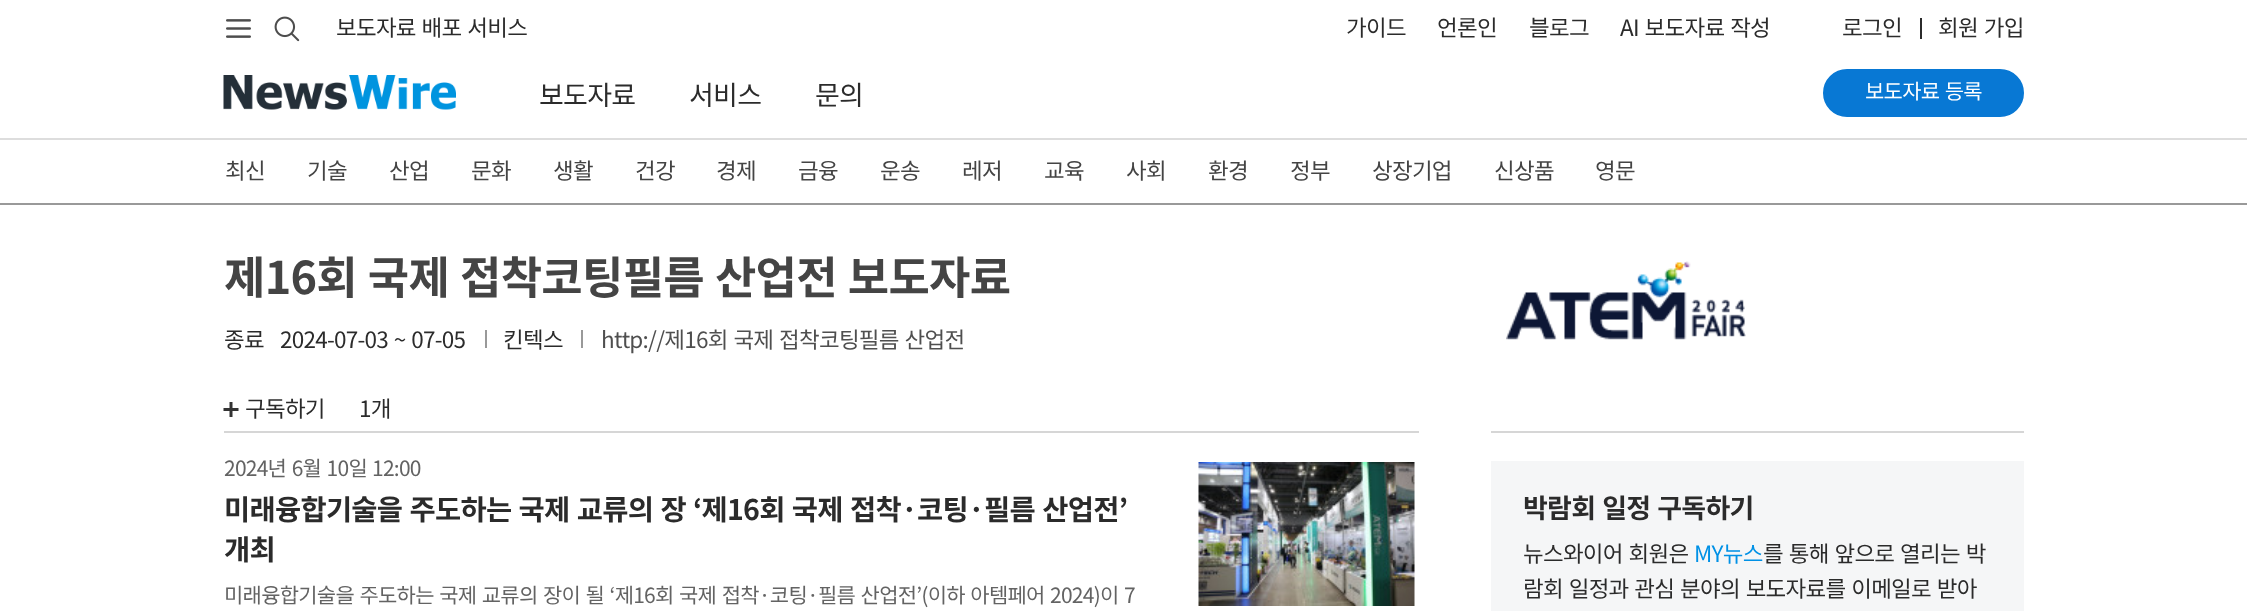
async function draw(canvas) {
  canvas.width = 2247;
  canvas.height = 611;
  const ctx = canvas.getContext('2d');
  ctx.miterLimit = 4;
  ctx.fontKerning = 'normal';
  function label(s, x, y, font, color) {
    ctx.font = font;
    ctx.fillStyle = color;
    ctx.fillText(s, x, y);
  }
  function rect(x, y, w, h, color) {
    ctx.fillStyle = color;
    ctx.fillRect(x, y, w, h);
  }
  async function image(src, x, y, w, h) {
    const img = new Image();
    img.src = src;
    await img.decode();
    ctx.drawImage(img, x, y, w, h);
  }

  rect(0, 0, 2247, 611, '#fff');
  await image('assets/img1.png', 226, 19, 25, 19);
  await image('assets/img2.png', 274, 16, 26, 26);
  ctx.letterSpacing = '-0.75px';
  ctx.wordSpacing = '1.5px';
  label('보도자료 배포 서비스', 336, 36, '22.5px Noto Sans KR', '#2b2b2b');
  ctx.wordSpacing = '0px';
  label('가이드', 1346, 36, '22.5px Noto Sans KR', '#2b2b2b');
  label('언론인', 1437, 36, '22.5px Noto Sans KR', '#2b2b2b');
  label('블로그', 1529, 36, '22.5px Noto Sans KR', '#2b2b2b');
  ctx.wordSpacing = '1.5px';
  label('AI 보도자료 작성', 1620, 36, '22.5px Noto Sans KR', '#2b2b2b');
  ctx.wordSpacing = '0px';
  label('로그인', 1842, 36, '22.5px Noto Sans KR', '#2b2b2b');
  rect(1920, 18, 2, 21, '#2b2b2b');
  ctx.wordSpacing = '1.5px';
  label('회원 가입', 1938, 36, '22.5px Noto Sans KR', '#2b2b2b');
  await image('assets/img3.png', 223, 75, 233, 35);
  ctx.wordSpacing = '0px';
  label('보도자료', 539, 105, '27px Noto Sans KR', '#2b2b2b');
  label('서비스', 689, 105, '27px Noto Sans KR', '#2b2b2b');
  label('문의', 815, 105, '27px Noto Sans KR', '#2b2b2b');
  ctx.fillStyle = '#0878d4';
  ctx.beginPath();
  ctx.roundRect(1824, 70, 199, 46, 23);
  ctx.fill();
  ctx.strokeStyle = '#0878d4';
  ctx.lineWidth = 2;
  ctx.stroke();
  ctx.wordSpacing = '1.5px';
  label('보도자료 등록', 1865, 99, '21px Noto Sans KR', '#fff');
  rect(0, 138, 2247, 2, '#ddd');
  rect(0, 203, 2247, 2, '#999');
  ctx.wordSpacing = '0px';
  label('최신', 225, 179, '22.5px Noto Sans KR', '#444');
  label('기술', 307, 179, '22.5px Noto Sans KR', '#444');
  label('산업', 389, 179, '22.5px Noto Sans KR', '#444');
  label('문화', 471, 179, '22.5px Noto Sans KR', '#444');
  label('생활', 553, 179, '22.5px Noto Sans KR', '#444');
  label('건강', 635, 179, '22.5px Noto Sans KR', '#444');
  label('경제', 716, 179, '22.5px Noto Sans KR', '#444');
  label('금융', 798, 179, '22.5px Noto Sans KR', '#444');
  label('운송', 880, 179, '22.5px Noto Sans KR', '#444');
  label('레저', 962, 179, '22.5px Noto Sans KR', '#444');
  label('교육', 1044, 179, '22.5px Noto Sans KR', '#444');
  label('사회', 1126, 179, '22.5px Noto Sans KR', '#444');
  label('환경', 1208, 179, '22.5px Noto Sans KR', '#444');
  label('정부', 1290, 179, '22.5px Noto Sans KR', '#444');
  label('상장기업', 1372, 179, '22.5px Noto Sans KR', '#444');
  label('신상품', 1494, 179, '22.5px Noto Sans KR', '#444');
  label('영문', 1595, 179, '22.5px Noto Sans KR', '#444');
  ctx.wordSpacing = '1.5px';
  label('제16회 국제 접착코팅필름 산업전 보도자료', 224, 294, 'bold 45px Noto Sans KR', '#444');
  ctx.wordSpacing = '0px';
  label('종료', 224, 348, '22.5px Noto Sans KR', '#2b2b2b');
  ctx.wordSpacing = '1.5px';
  label('2024-07-03 ~ 07-05', 280, 348, '22.5px Noto Sans KR', '#2b2b2b');
  rect(485, 330, 2, 18, '#999');
  ctx.wordSpacing = '0px';
  label('킨텍스', 503, 348, '22.5px Noto Sans KR', '#2b2b2b');
  rect(581, 330, 2, 18, '#999');
  ctx.wordSpacing = '1.5px';
  label('http://제16회 국제 접착코팅필름 산업전', 601, 348, '22.5px Noto Sans KR', '#4f4f4f');
  await image('assets/img4.png', 1506, 261, 240, 79);
  rect(224, 431, 1195, 2, '#d6d6d6');
  await image('assets/img5.png', 223, 402, 16, 15);
  ctx.wordSpacing = '0px';
  label('구독하기', 245, 417, '22.5px Noto Sans KR', '#2b2b2b');
  label('1개', 359, 417, '22.5px Noto Sans KR', '#2b2b2b');
  ctx.wordSpacing = '1.5px';
  label('2024년 6월 10일', 224, 476, '21px Noto Sans KR', '#636363');
  ctx.wordSpacing = '0px';
  label('12:00', 372, 476, '21px Noto Sans KR', '#636363');
  ctx.wordSpacing = '1.5px';
  label('미래융합기술을 주도하는 국제 교류의 장 ‘제16회 국제 접착·코팅·필름 산업전’', 224, 520, 'bold 28.5px Noto Sans KR', '#2b2b2b');
  ctx.wordSpacing = '0px';
  label('개최', 224, 560, 'bold 28.5px Noto Sans KR', '#2b2b2b');
  ctx.wordSpacing = '1.5px';
  label('미래융합기술을 주도하는 국제 교류의 장이 될 ‘제16회 국제 접착·코팅·필름 산업전’(이하 아템페어 2024)이 7', 224, 603, '21px Noto Sans KR', '#636363');
  await image('assets/img6.png', 1198, 462, 217, 144);
  rect(1491, 431, 533, 2, '#d6d6d6');
  rect(1491, 461, 533, 150, '#f5f6f7');
  label('박람회 일정 구독하기', 1523, 518, 'bold 27px Noto Sans KR', '#2b2b2b');
  label('뉴스와이어 회원은', 1523, 562, '22.5px Noto Sans KR', '#2b2b2b');
  ctx.wordSpacing = '0px';
  label('MY뉴스', 1694, 562, '22.5px Noto Sans KR', '#0091e6');
  ctx.wordSpacing = '1.5px';
  label('를 통해 앞으로 열리는 박', 1763, 562, '22.5px Noto Sans KR', '#2b2b2b');
  label('람회 일정과 관심 분야의 보도자료를 이메일로 받아', 1523, 597, '22.5px Noto Sans KR', '#2b2b2b');
}

draw(document.querySelector('canvas'));
